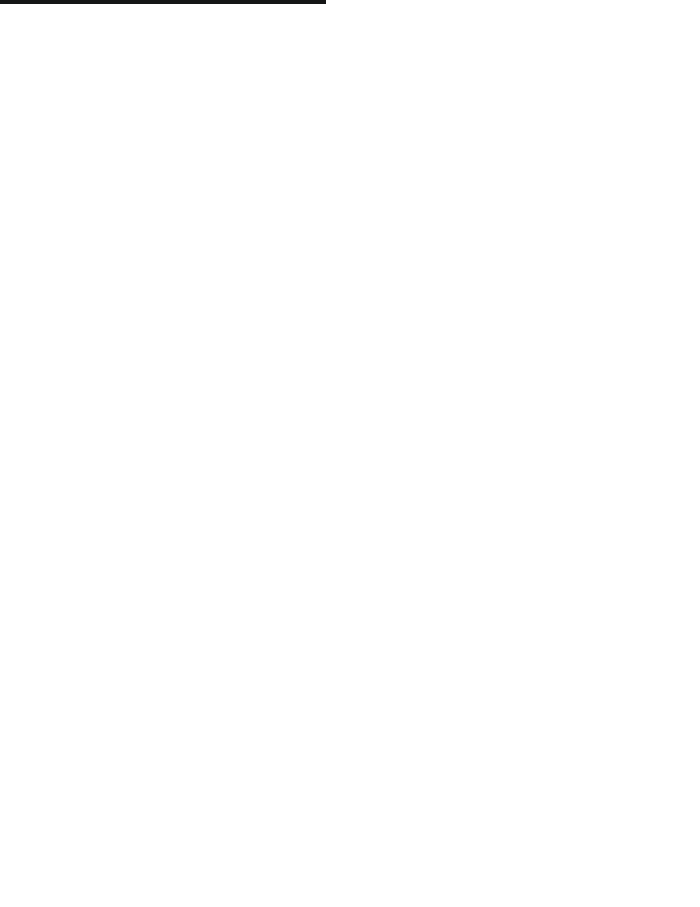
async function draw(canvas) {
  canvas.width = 700;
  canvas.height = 907;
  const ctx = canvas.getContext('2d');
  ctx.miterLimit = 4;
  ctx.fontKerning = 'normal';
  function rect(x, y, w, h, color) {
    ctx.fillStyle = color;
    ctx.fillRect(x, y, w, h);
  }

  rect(0, 0, 700, 907, '#fff');
  rect(0, 0, 326, 4, '#151616');
}

draw(document.querySelector('canvas'));
